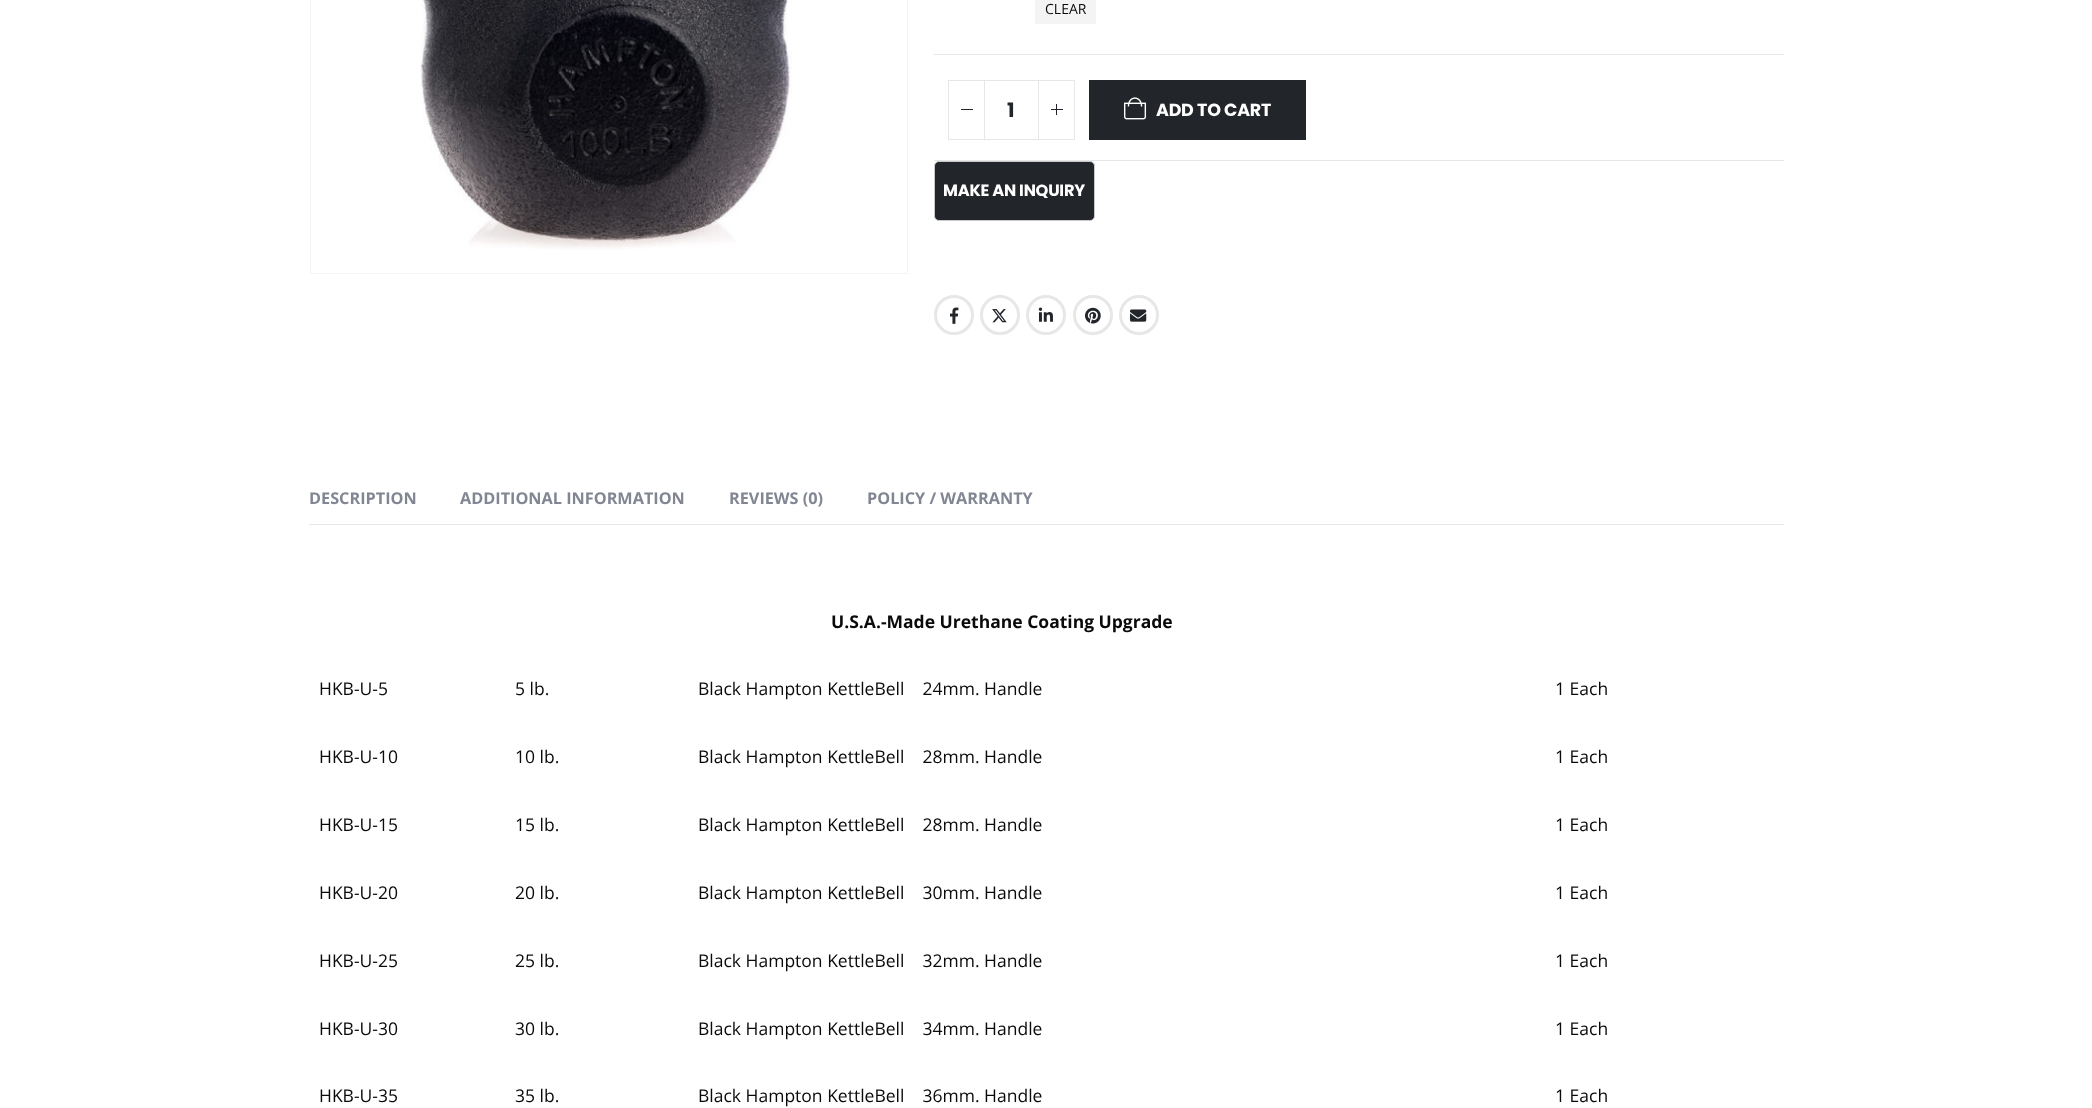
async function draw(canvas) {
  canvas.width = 2092;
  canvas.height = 1108;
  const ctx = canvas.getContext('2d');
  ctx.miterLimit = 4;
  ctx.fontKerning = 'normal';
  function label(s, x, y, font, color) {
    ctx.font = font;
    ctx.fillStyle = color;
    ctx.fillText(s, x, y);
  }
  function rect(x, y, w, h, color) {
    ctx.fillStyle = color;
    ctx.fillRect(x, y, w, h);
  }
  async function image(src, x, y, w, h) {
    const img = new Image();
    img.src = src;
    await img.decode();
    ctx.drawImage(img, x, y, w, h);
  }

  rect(0, 0, 2092, 1108, '#fff');
  ctx.strokeStyle = '#f4f4f4';
  ctx.strokeRect(310.5, -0.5, 597, 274);
  await image('assets/img1.png', 420, 0, 372, 250);
  rect(1035, 0, 61, 24, '#f4f4f4');
  label('CLEAR', 1045, 14, '14px Open Sans', '#0a0a0a');
  rect(934, 54, 850, 1, '#e7e7e7');
  rect(934, 160, 850, 1, '#e7e7e7');
  rect(984, 80, 55, 1, '#e7e7e7');
  rect(984, 139, 55, 1, '#e7e7e7');
  ctx.strokeStyle = '#e7e7e7';
  ctx.strokeRect(948.5, 80.5, 36, 59);
  rect(961, 109, 12, 1, '#222529');
  label('1', 1007, 117, 'bold 20px Poppins', '#222529');
  ctx.strokeRect(1038.5, 80.5, 36, 59);
  rect(1051, 109, 12, 1, '#222529');
  rect(1056, 104, 1, 11, '#222529');
  rect(1089, 80, 217, 60, '#222529');
  await image('assets/img2.png', 1124, 97, 23, 23);
  ctx.letterSpacing = '-0.25px';
  label('ADD TO CART', 1156, 116, 'bold 17.5px Poppins', '#fff');
  ctx.fillStyle = '#222529';
  ctx.beginPath();
  ctx.roundRect(934.5, 161.5, 160, 59, 4.5);
  ctx.fill();
  ctx.strokeStyle = '#cac9c9';
  ctx.stroke();
  label('MAKE AN INQUIRY', 943, 196, 'bold 16.25px Poppins', '#fff');
  ctx.beginPath();
  ctx.arc(954, 315, 18.5, 0, 2 * Math.PI);
  ctx.strokeStyle = '#e7e7e7';
  ctx.lineWidth = 3;
  ctx.stroke();
  await image('assets/img3.png', 950, 307, 9, 17);
  ctx.beginPath();
  ctx.arc(1000, 315, 18.5, 0, 2 * Math.PI);
  ctx.stroke();
  await image('assets/img4.png', 992, 309, 15, 14);
  ctx.beginPath();
  ctx.arc(1046, 315, 18.5, 0, 2 * Math.PI);
  ctx.stroke();
  await image('assets/img5.png', 1038, 307, 15, 15);
  ctx.beginPath();
  ctx.arc(1093, 315, 18.5, 0, 2 * Math.PI);
  ctx.stroke();
  await image('assets/img6.png', 1085, 307, 16, 17);
  ctx.beginPath();
  ctx.arc(1139, 315, 18.5, 0, 2 * Math.PI);
  ctx.stroke();
  await image('assets/img7.png', 1130, 309, 17, 13);
  ctx.letterSpacing = '0px';
  label('DESCRIPTION', 309, 504, 'bold 16.25px Open Sans', '#818692');
  label('ADDITIONAL INFORMATION', 460, 504, 'bold 16.25px Open Sans', '#818692');
  label('REVIEWS (0)', 729, 504, 'bold 16.25px Open Sans', '#818692');
  label('POLICY / WARRANTY', 867, 504, 'bold 16.25px Open Sans', '#818692');
  rect(309, 524, 1475, 1, '#e7e7e7');
  label('U.S.A.-Made Urethane Coating Upgrade', 831, 628, 'bold 17.5px Open Sans', '#0a0a0a');
  label('HKB-U-5', 319, 695, '17.5px Open Sans', '#0a0a0a');
  label('5 lb.', 515, 695, '17.5px Open Sans', '#0a0a0a');
  label('Black Hampton KettleBell    24mm. Handle', 698, 695, '17.5px Open Sans', '#0a0a0a');
  label('1 Each', 1555, 695, '17.5px Open Sans', '#0a0a0a');
  label('HKB-U-10', 319, 763, '17.5px Open Sans', '#0a0a0a');
  label('10 lb.', 515, 763, '17.5px Open Sans', '#0a0a0a');
  label('Black Hampton KettleBell    28mm. Handle', 698, 763, '17.5px Open Sans', '#0a0a0a');
  label('1 Each', 1555, 763, '17.5px Open Sans', '#0a0a0a');
  label('HKB-U-15', 319, 831, '17.5px Open Sans', '#0a0a0a');
  label('15 lb.', 515, 831, '17.5px Open Sans', '#0a0a0a');
  label('Black Hampton KettleBell    28mm. Handle', 698, 831, '17.5px Open Sans', '#0a0a0a');
  label('1 Each', 1555, 831, '17.5px Open Sans', '#0a0a0a');
  label('HKB-U-20', 319, 899, '17.5px Open Sans', '#0a0a0a');
  label('20 lb.', 515, 899, '17.5px Open Sans', '#0a0a0a');
  label('Black Hampton KettleBell    30mm. Handle', 698, 899, '17.5px Open Sans', '#0a0a0a');
  label('1 Each', 1555, 899, '17.5px Open Sans', '#0a0a0a');
  label('HKB-U-25', 319, 967, '17.5px Open Sans', '#0a0a0a');
  label('25 lb.', 515, 967, '17.5px Open Sans', '#0a0a0a');
  label('Black Hampton KettleBell    32mm. Handle', 698, 967, '17.5px Open Sans', '#0a0a0a');
  label('1 Each', 1555, 967, '17.5px Open Sans', '#0a0a0a');
  label('HKB-U-30', 319, 1035, '17.5px Open Sans', '#0a0a0a');
  label('30 lb.', 515, 1035, '17.5px Open Sans', '#0a0a0a');
  label('Black Hampton KettleBell    34mm. Handle', 698, 1035, '17.5px Open Sans', '#0a0a0a');
  label('1 Each', 1555, 1035, '17.5px Open Sans', '#0a0a0a');
  label('HKB-U-35', 319, 1102, '17.5px Open Sans', '#0a0a0a');
  label('35 lb.', 515, 1102, '17.5px Open Sans', '#0a0a0a');
  label('Black Hampton KettleBell    36mm. Handle', 698, 1102, '17.5px Open Sans', '#0a0a0a');
  label('1 Each', 1555, 1102, '17.5px Open Sans', '#0a0a0a');
}

draw(document.querySelector('canvas'));
